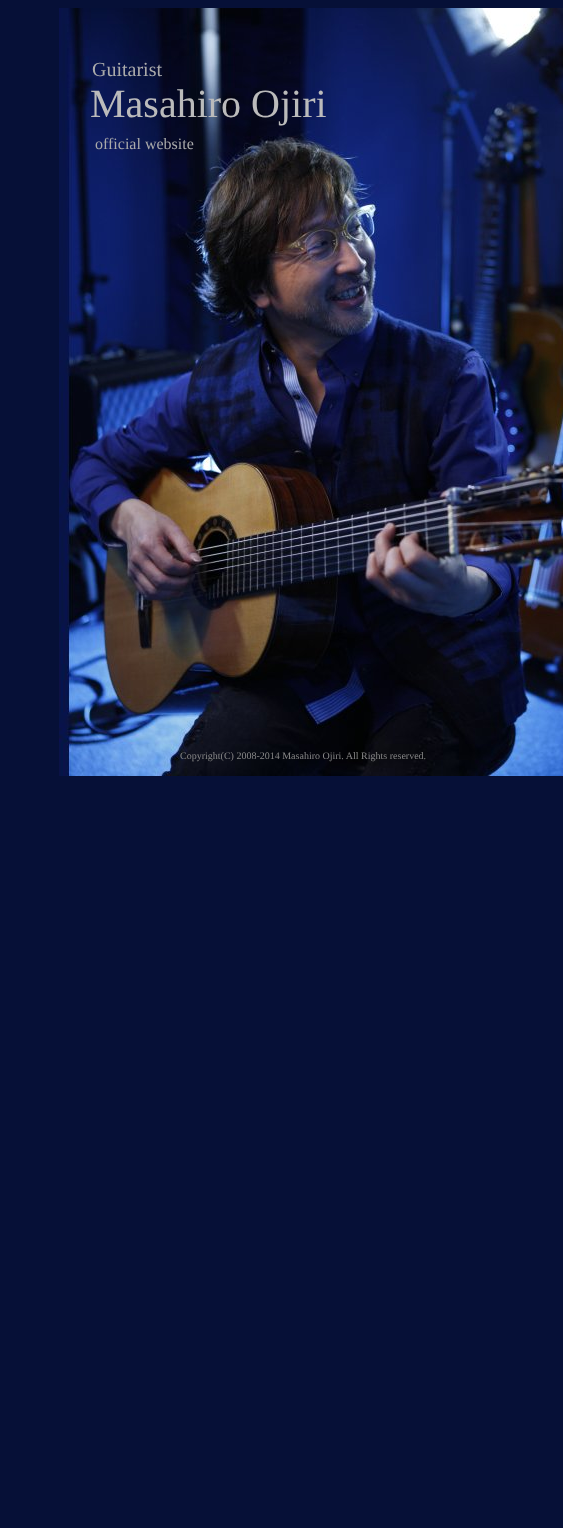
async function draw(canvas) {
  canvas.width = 563;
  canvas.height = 1528;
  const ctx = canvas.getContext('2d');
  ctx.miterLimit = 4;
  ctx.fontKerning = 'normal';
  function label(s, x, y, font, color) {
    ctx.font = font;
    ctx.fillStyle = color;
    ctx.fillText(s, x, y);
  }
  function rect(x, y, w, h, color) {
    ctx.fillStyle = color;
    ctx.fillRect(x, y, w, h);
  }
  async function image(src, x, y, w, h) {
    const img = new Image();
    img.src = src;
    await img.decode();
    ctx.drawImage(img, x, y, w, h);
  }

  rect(0, 0, 563, 1528, '#061037');
  await image('assets/img1.png', 59, 8, 504, 768);
  label('Guitarist', 92, 76, '20px Liberation Serif', '#aaa');
  label('Masahiro Ojiri', 90, 117, '40px Liberation Serif', '#bbb');
  label('official website', 95, 149, '16px Liberation Serif', '#aaa');
  label('Copyright(C) 2008-2014 Masahiro Ojiri. All Rights reserved.', 180, 759, '10px Liberation Serif', '#888');
}

draw(document.querySelector('canvas'));
